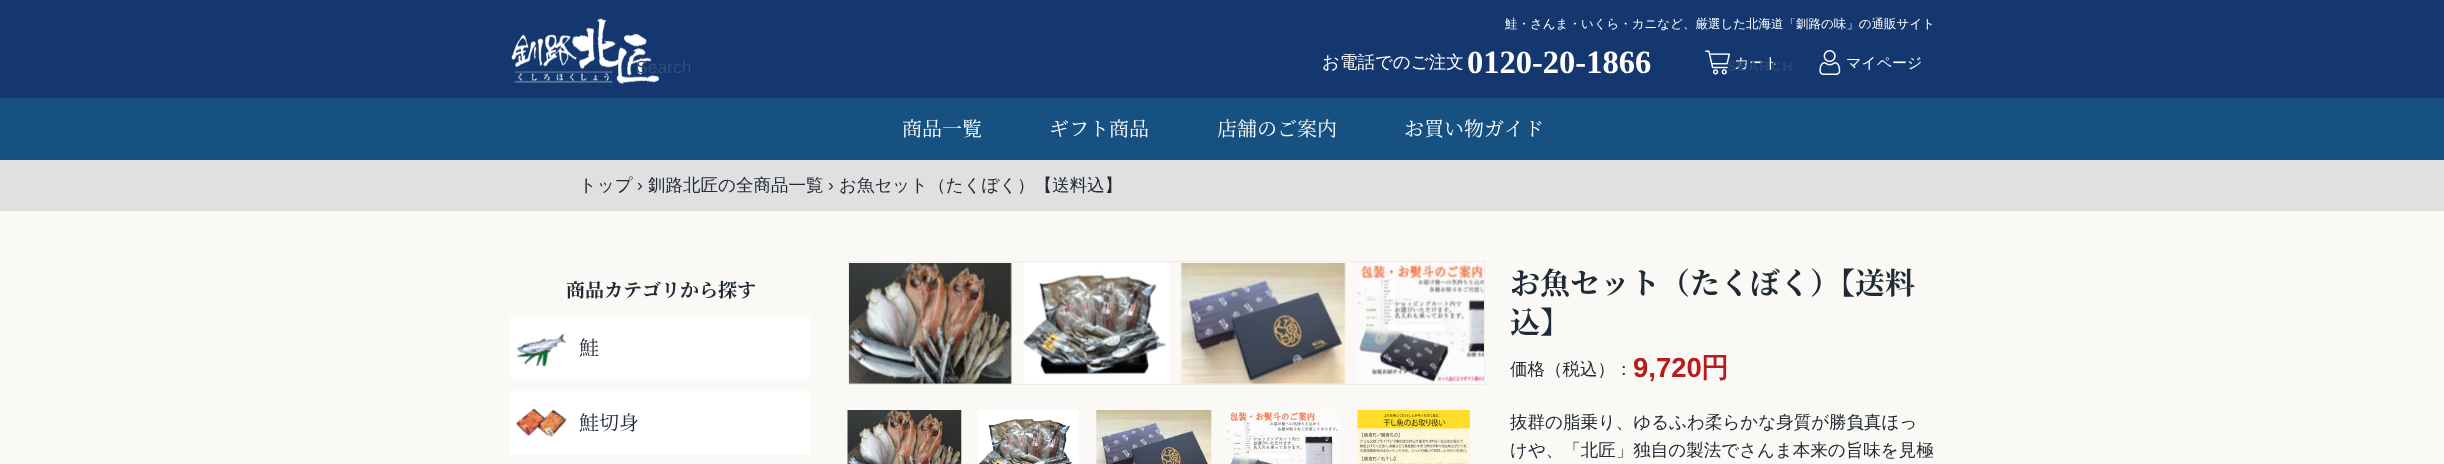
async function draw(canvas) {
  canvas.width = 2444;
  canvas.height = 464;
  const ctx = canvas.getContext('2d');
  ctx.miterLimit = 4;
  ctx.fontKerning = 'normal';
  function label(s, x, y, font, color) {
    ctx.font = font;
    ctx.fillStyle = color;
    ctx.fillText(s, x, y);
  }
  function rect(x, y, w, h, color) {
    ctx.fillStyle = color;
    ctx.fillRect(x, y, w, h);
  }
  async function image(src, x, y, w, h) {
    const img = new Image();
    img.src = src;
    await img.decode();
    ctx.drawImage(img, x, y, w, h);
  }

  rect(0, 0, 2444, 464, '#faf9f5');
  rect(0, 0, 2444, 98, '#13376e');
  label('鮭・さんま・いくら・カニなど、厳選した北海道「釧路の味」の通販サイト', 1505, 28, '500 12.5px WenQuanYi Zen Hei', '#fff');
  label('お電話でのご注文', 1322, 68, '500 17.5px WenQuanYi Zen Hei', '#fff');
  label('0120-20-1866', 1467, 73, 'bold 32.5px Liberation Serif', '#fff');
  await image('assets/img1.png', 1705, 50, 25, 25);
  label('カート', 1734, 68, '500 15px WenQuanYi Zen Hei', '#fff');
  await image('assets/img2.png', 1819, 50, 22, 25);
  label('マイページ', 1846, 68, '500 15px WenQuanYi Zen Hei', '#fff');
  await image('assets/img3.png', 511, 18, 149, 67);
  label('Search', 636, 73, '17.5px Liberation Sans', '#304f80');
  ctx.letterSpacing = '1.25px';
  label('SEARCH', 1727, 71, 'bold 14px Liberation Sans', '#264779');
  rect(0, 98, 2444, 62, '#165182');
  ctx.letterSpacing = '0px';
  label('商品一覧', 902, 136, '20px Noto Serif JP', '#fff');
  label('ギフト商品', 1049, 136, '20px Noto Serif JP', '#fff');
  label('店舗のご案内', 1217, 136, '20px Noto Serif JP', '#fff');
  label('お買い物ガイド', 1404, 136, '20px Noto Serif JP', '#fff');
  rect(0, 160, 2444, 51, '#e0e0e0');
  label('トップ', 579, 191, '500 17.5px WenQuanYi Zen Hei', '#212b36');
  label('›', 637, 191, '17.5px Liberation Sans', '#212b36');
  label('釧路北匠の全商品一覧', 648, 191, '500 17.5px WenQuanYi Zen Hei', '#212b36');
  label('›', 828, 191, '17.5px Liberation Sans', '#212b36');
  label('お魚セット（たくぼく）【送料込】', 839, 191, '500 17.5px WenQuanYi Zen Hei', '#212b36');
  label('商品カテゴリから探す', 566, 297, 'bold 19px Noto Serif JP', '#212b36');
  rect(510, 316, 300, 63, '#fff');
  await image('assets/img4.png', 516, 333, 51, 34);
  label('鮭', 579, 355, '20px Noto Serif JP', '#212b36');
  rect(510, 391, 300, 63, '#fff');
  await image('assets/img5.png', 516, 408, 51, 29);
  label('鮭切身', 579, 430, '20px Noto Serif JP', '#212b36');
  ctx.strokeStyle = '#eeede9';
  ctx.strokeRect(848.5, 261.5, 636, 123);
  await image('assets/img6.png', 849, 263, 163, 121);
  await image('assets/img7.png', 1023, 263, 146, 121);
  await image('assets/img8.png', 1180, 263, 166, 121);
  await image('assets/img9.png', 1357, 263, 127, 121);
  await image('assets/img10.png', 847, 410, 115, 54);
  await image('assets/img11.png', 977, 410, 102, 54);
  await image('assets/img12.png', 1096, 410, 116, 54);
  await image('assets/img13.png', 1227, 410, 113, 54);
  await image('assets/img14.png', 1357, 410, 113, 54);
  label('お魚セット（たくぼく）【送料', 1510, 294, 'bold 30px Noto Serif JP', '#212b36');
  label('込】', 1510, 333, 'bold 30px Noto Serif JP', '#212b36');
  label('価格（税込）：', 1510, 375, '500 17.5px WenQuanYi Zen Hei', '#212b36');
  label('9,720', 1633, 377, 'bold 27.5px Liberation Sans', '#b71c1c');
  label('円', 1701, 377, 'bold 27.5px WenQuanYi Zen Hei', '#b71c1c');
  label('抜群の脂乗り、ゆるふわ柔らかな身質が勝負真ほっ', 1510, 428, '500 17.5px WenQuanYi Zen Hei', '#212b36');
  label('けや、「北匠」独自の製法でさんま本来の旨味を見極', 1510, 456, '500 17.5px WenQuanYi Zen Hei', '#212b36');
}

draw(document.querySelector('canvas'));
